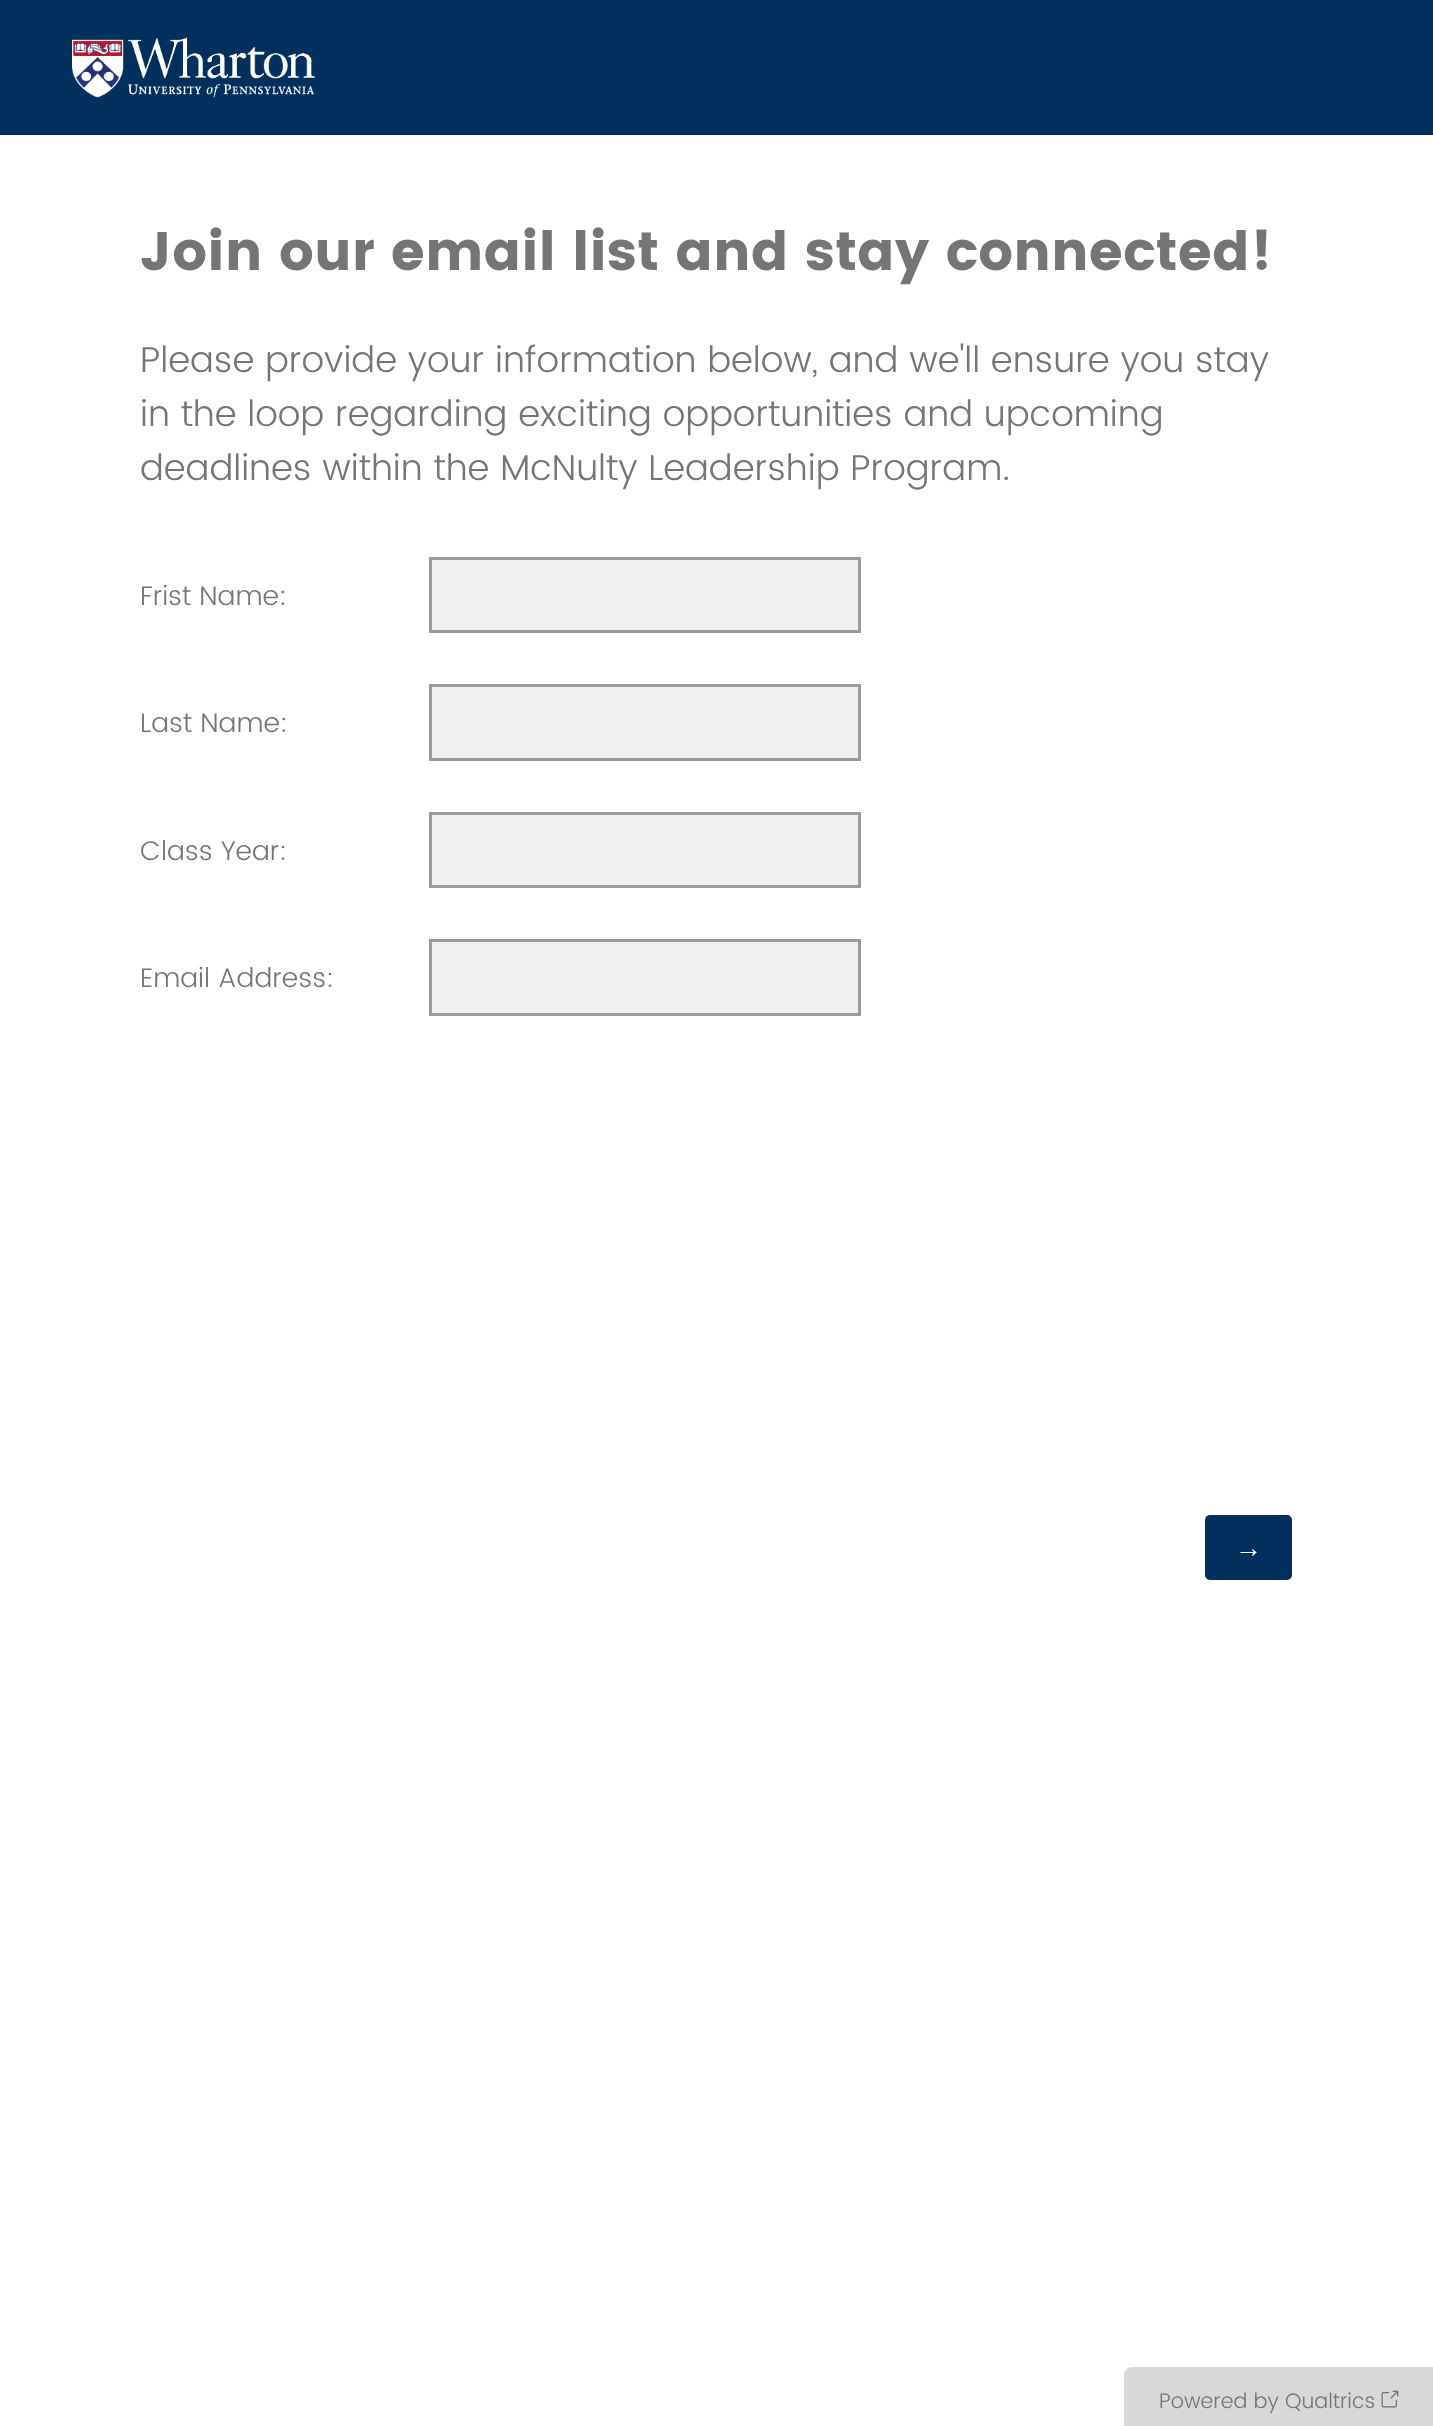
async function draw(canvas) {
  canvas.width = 1433;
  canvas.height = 2426;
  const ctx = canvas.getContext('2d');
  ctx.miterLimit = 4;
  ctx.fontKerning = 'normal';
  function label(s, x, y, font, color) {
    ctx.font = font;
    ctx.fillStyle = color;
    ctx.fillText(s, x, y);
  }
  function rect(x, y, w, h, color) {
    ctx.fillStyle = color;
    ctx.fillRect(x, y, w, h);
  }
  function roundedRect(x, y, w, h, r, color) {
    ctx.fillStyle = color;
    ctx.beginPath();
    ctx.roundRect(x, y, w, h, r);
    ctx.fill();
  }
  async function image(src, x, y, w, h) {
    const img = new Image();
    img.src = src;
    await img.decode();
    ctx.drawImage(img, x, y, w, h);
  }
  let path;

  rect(0, 0, 1433, 2426, '#fff');
  rect(0, 0, 1433, 135, '#01305c');
  await image('assets/img1.png', 72, 37, 243, 61);
  label('Join our email list and stay connected!', 140, 270, 'bold 54px Poppins', '#757575');
  label('Please provide your information below, and we\'ll ensure you stay', 140, 372, '300 36px Poppins', '#757575');
  label('in the loop regarding exciting opportunities and upcoming', 140, 426, '300 36px Poppins', '#757575');
  label('deadlines within the McNulty Leadership Program.', 140, 480, '300 36px Poppins', '#757575');
  label('Frist Name:', 140, 605, '300 27px Poppins', '#757575');
  ctx.fillStyle = '#f0f0f0';
  ctx.beginPath();
  ctx.rect(430.5, 558.5, 429, 73);
  ctx.fill();
  ctx.strokeStyle = '#9b9b9b';
  ctx.lineWidth = 3;
  ctx.stroke();
  label('Last Name:', 140, 732, '300 27px Poppins', '#757575');
  ctx.fillStyle = '#f0f0f0';
  ctx.beginPath();
  ctx.rect(430.5, 685.5, 429, 74);
  ctx.fill();
  ctx.stroke();
  label('Class Year:', 140, 860, '300 27px Poppins', '#757575');
  ctx.fillStyle = '#f0f0f0';
  ctx.beginPath();
  ctx.rect(430.5, 813.5, 429, 73);
  ctx.fill();
  ctx.stroke();
  label('Email Address:', 140, 987, '300 27px Poppins', '#757575');
  ctx.fillStyle = '#f0f0f0';
  ctx.beginPath();
  ctx.rect(430.5, 940.5, 429, 74);
  ctx.fill();
  ctx.stroke();
  roundedRect(1205, 1515, 87, 65, 5, '#01305c');
  label('→', 1235, 1557, '27px Liberation Sans', '#fff');
  ctx.fillStyle = '#d8d8da';
  path = new Path2D('M1132 2367H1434V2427H1124V2375C1124 2370.5 1127.5 2367 1132 2367Z');
  ctx.fill(path);
  label('Powered by Qualtrics', 1159, 2408, '300 21px Poppins', '#757575');
  await image('assets/img2.png', 1381, 2390, 18, 18);
}

draw(document.querySelector('canvas'));
